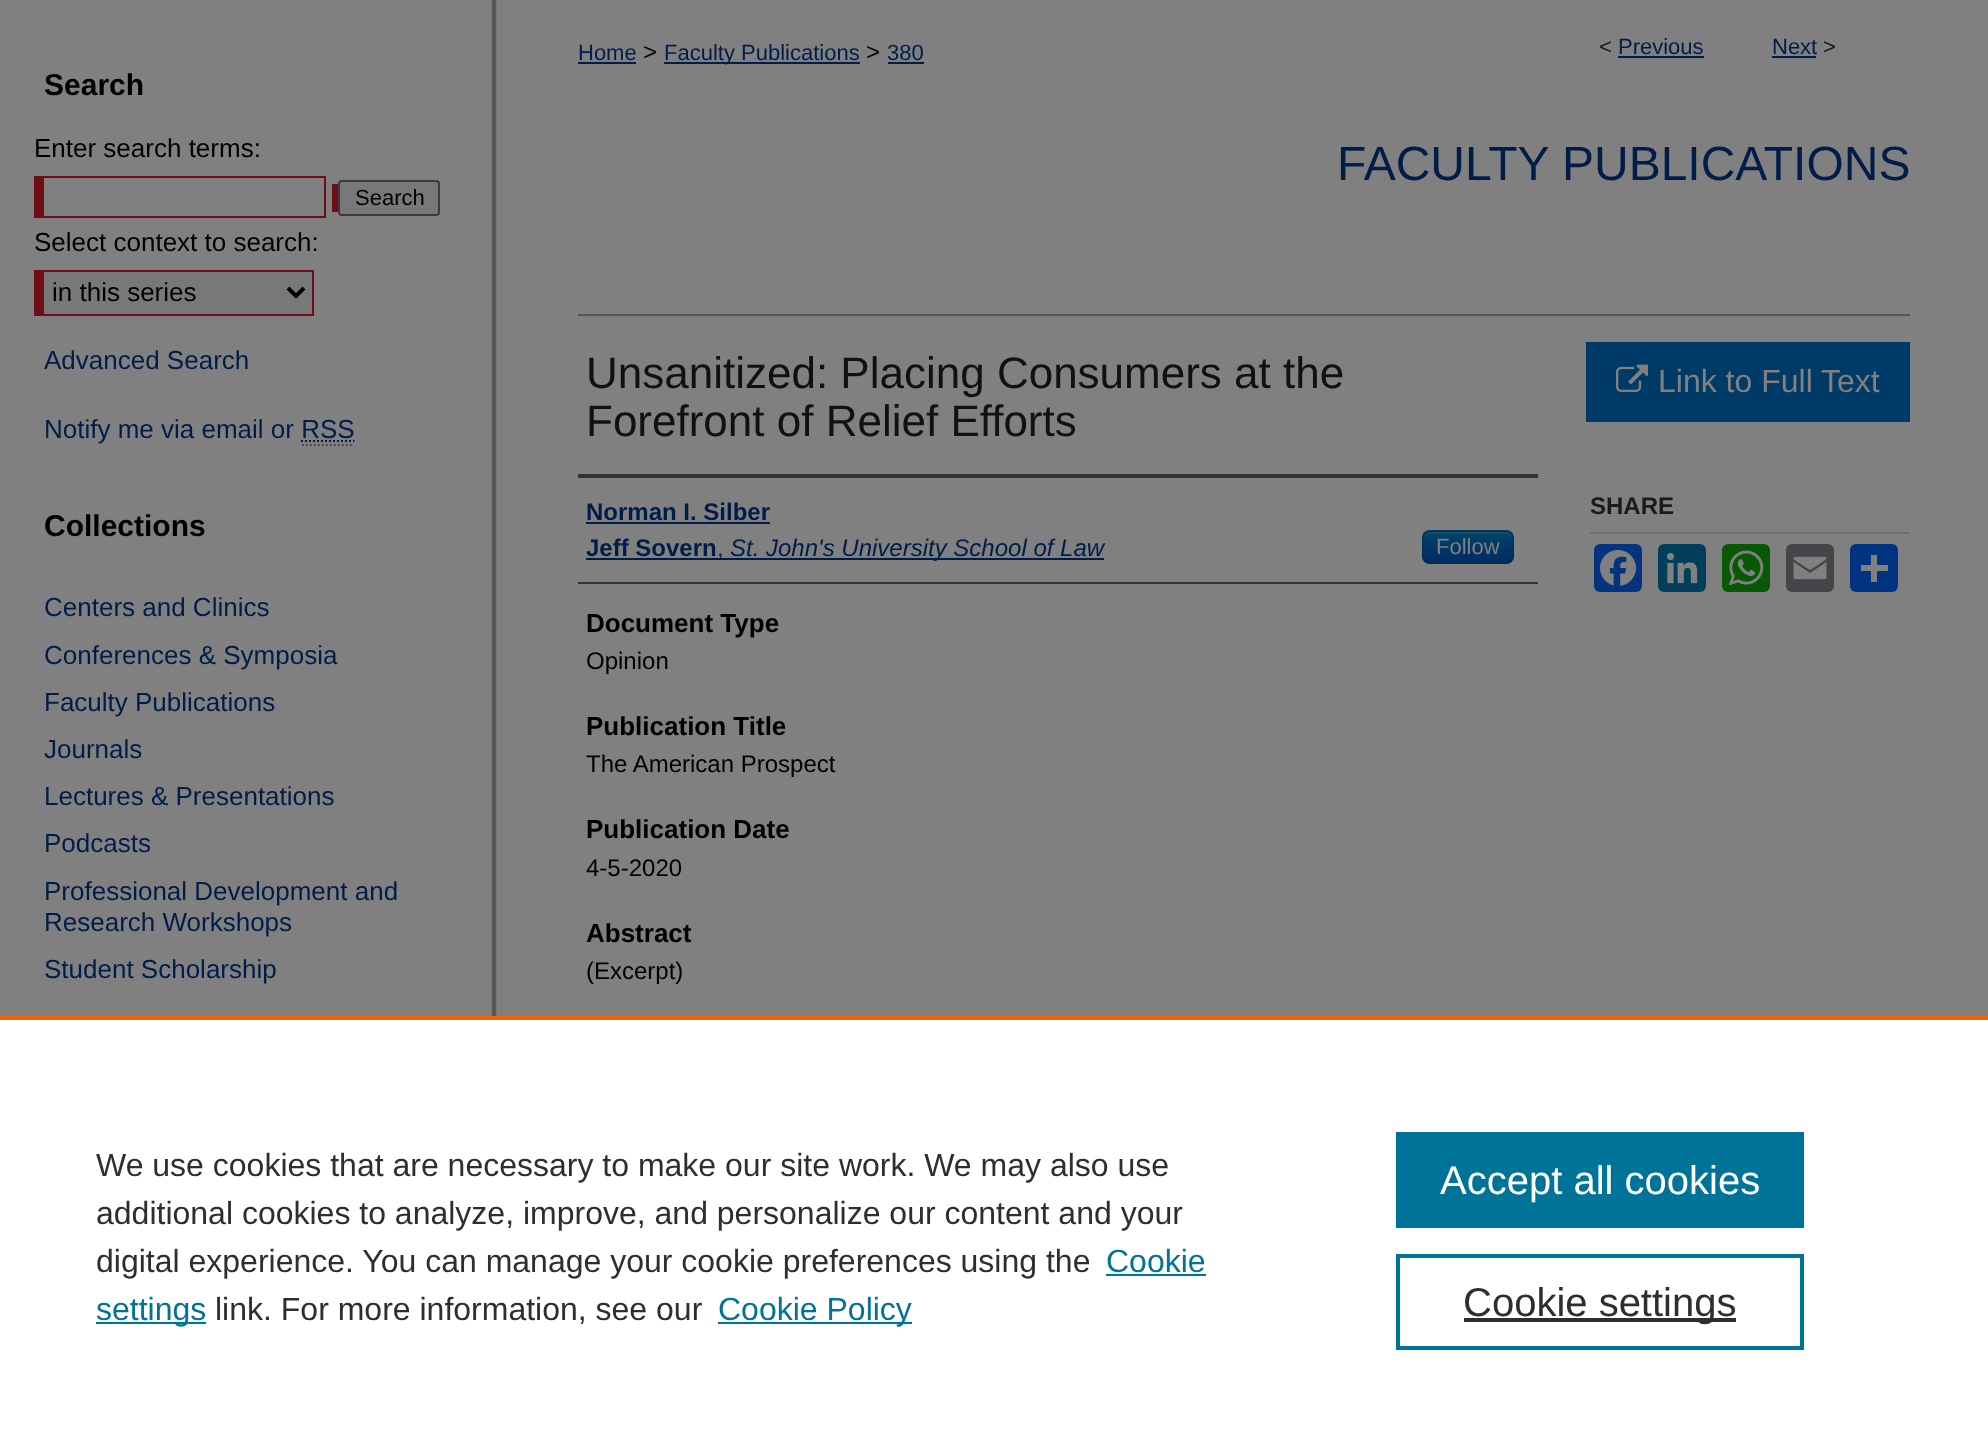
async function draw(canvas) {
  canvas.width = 1988;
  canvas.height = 1455;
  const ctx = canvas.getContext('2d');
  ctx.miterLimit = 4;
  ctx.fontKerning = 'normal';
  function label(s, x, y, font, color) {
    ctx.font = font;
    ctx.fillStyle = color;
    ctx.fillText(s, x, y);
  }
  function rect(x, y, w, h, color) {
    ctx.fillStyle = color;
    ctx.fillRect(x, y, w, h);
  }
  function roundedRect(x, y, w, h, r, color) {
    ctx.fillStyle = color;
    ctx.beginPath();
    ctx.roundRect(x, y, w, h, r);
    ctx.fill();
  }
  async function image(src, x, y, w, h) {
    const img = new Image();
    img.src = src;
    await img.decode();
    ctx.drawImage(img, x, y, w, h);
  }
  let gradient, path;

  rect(0, 0, 1988, 1455, '#808080');
  await image('assets/img1.png', 491, 0, 6, 1016);
  label('Search', 44, 95, 'bold 30px Liberation Sans', '#000');
  label('Enter search terms:', 34, 157, '26px Liberation Sans', '#000');
  rect(34, 176, 292, 42, '#6f0d19');
  rect(332, 184, 6, 28, '#6f0d19');
  rect(44, 178, 280, 38, '#808080');
  ctx.fillStyle = '#787878';
  ctx.beginPath();
  ctx.roundRect(339, 181, 100, 34, 3);
  ctx.fill();
  ctx.strokeStyle = '#3b3b3b';
  ctx.lineWidth = 2;
  ctx.stroke();
  label('Search', 355, 205, '22px Liberation Sans', '#000');
  label('Select context to search:', 34, 251, '26px Liberation Sans', '#000');
  rect(44, 272, 268, 42, '#787878');
  rect(44, 270, 270, 2, '#6f0d19');
  rect(312, 270, 2, 46, '#6f0d19');
  rect(44, 314, 270, 2, '#6f0d19');
  rect(34, 270, 10, 46, '#6f0d19');
  path = new Path2D('M288 288L296 296L304 288');
  ctx.strokeStyle = '#000';
  ctx.lineWidth = 4;
  ctx.stroke(path);
  label('in this series', 52, 301, '26px Liberation Sans', '#000');
  label('Advanced Search', 44, 369, '26px Liberation Sans', '#001c4a');
  label('Notify me via email or RSS', 44, 438, '26px Liberation Sans', '#001c4a');
  path = new Path2D('M301 441H354.5');
  ctx.strokeStyle = '#001c4a';
  ctx.lineWidth = 2;
  ctx.setLineDash([2, 2]);
  ctx.stroke(path);
  path = new Path2D('M302 445H354');
  ctx.strokeStyle = '#4d4d4d';
  ctx.stroke(path);
  label('Collections', 44, 536, 'bold 30px Liberation Sans', '#000');
  label('Centers and Clinics', 44, 616, '26px Liberation Sans', '#001c4a');
  label('Conferences & Symposia', 44, 664, '26px Liberation Sans', '#001c4a');
  label('Faculty Publications', 44, 711, '26px Liberation Sans', '#001c4a');
  label('Journals', 44, 758, '26px Liberation Sans', '#001c4a');
  label('Lectures & Presentations', 44, 805, '26px Liberation Sans', '#001c4a');
  label('Podcasts', 44, 852, '26px Liberation Sans', '#001c4a');
  label('Professional Development and', 44, 900, '26px Liberation Sans', '#001c4a');
  label('Research Workshops', 44, 931, '26px Liberation Sans', '#001c4a');
  label('Student Scholarship', 44, 978, '26px Liberation Sans', '#001c4a');
  label('Home', 578, 60, '22px Liberation Sans', '#001c4a');
  rect(578, 62, 58, 2, '#001c4a');
  label('>', 643, 60, '24px Liberation Sans', '#000');
  rect(664, 62, 196, 2, '#001c4a');
  label('Faculty Publications', 664, 60, '22px Liberation Sans', '#001c4a');
  label('>', 866, 60, '24px Liberation Sans', '#000');
  label('380', 887, 60, '22px Liberation Sans', '#001c4a');
  rect(888, 62, 36, 2, '#001c4a');
  label('<', 1599, 54, '22px Liberation Sans', '#111');
  label('Previous', 1618, 54, '22px Liberation Sans', '#001c4a');
  rect(1618, 56, 86, 2, '#001c4a');
  label('Next', 1772, 54, '22px Liberation Sans', '#001c4a');
  rect(1772, 56, 44, 2, '#001c4a');
  label('>', 1823, 54, '22px Liberation Sans', '#111');
  label('FACULTY PUBLICATIONS', 1337, 180, '48px Liberation Sans', '#001c4a');
  rect(578, 314, 1332, 2, '#555');
  label('Unsanitized: Placing Consumers at the', 586, 388, '44px Liberation Sans', '#111');
  label('Forefront of Relief Efforts', 586, 436, '44px Liberation Sans', '#111');
  rect(578, 474, 960, 4, '#333');
  rect(578, 582, 960, 2, '#333');
  label('Norman I. Silber', 586, 520, 'bold 24px Liberation Sans', '#001c4a');
  rect(586, 522, 184, 2, '#001c4a');
  label('Jeff Sovern', 586, 556, 'bold 24px Liberation Sans', '#001c4a');
  rect(586, 558, 518, 2, '#001c4a');
  label(',', 717, 556, '24px Liberation Sans', '#001c4a');
  label('St. John\'s University School of Law', 730, 556, 'italic 24px Liberation Sans', '#001c4a');
  roundedRect(1422, 530, 92, 34, 8, '#003a66');
  ctx.save();
  ctx.beginPath();
  ctx.roundRect(1422, 530, 92, 34, 8);
  ctx.clip();
  gradient = ctx.createLinearGradient(1468, 532, 1468, 562);
  gradient.addColorStop(0, '#046');
  gradient.addColorStop(1, '#002b66');
  ctx.fillStyle = gradient;
  ctx.fillRect(1422, 532, 92, 30);
  ctx.restore();
  ctx.fillStyle = '#80808033';
  path = new Path2D('M1430 534H1506C1509 534 1512 537 1512 540C1512 529 1502 532 1493 532H1443C1434 532 1424 529 1424 540C1424 537 1427 534 1430 534Z');
  ctx.fill(path);
  path = new Path2D('M1511 561C1509.5 562.5 1508 563 1506 563H1430C1428 563 1426.5 562.5 1425 561');
  ctx.strokeStyle = '#00000040';
  ctx.setLineDash([]);
  ctx.stroke(path);
  path = new Path2D('M1425 561C1421.5 557.5 1423 551.5 1423 547C1423 529 1424 531 1442.5 531H1493.5C1512 531 1513 529 1513 547C1513 551.5 1514.5 557.5 1511 561');
  ctx.strokeStyle = '#0000001a';
  ctx.stroke(path);
  label('Follow', 1436, 554, '22px Liberation Sans', '#808080');
  label('Document Type', 586, 632, 'bold 26px Liberation Sans', '#000');
  label('Opinion', 586, 669, '24px Liberation Sans', '#000');
  label('Publication Title', 586, 735, 'bold 26px Liberation Sans', '#000');
  label('The American Prospect', 586, 772, '24px Liberation Sans', '#000');
  label('Publication Date', 586, 838, 'bold 26px Liberation Sans', '#000');
  label('4-5-2020', 586, 876, '24px Liberation Sans', '#000');
  label('Abstract', 586, 942, 'bold 26px Liberation Sans', '#000');
  label('(Excerpt)', 586, 979, '24px Liberation Sans', '#000');
  rect(1586, 342, 324, 80, '#003a66');
  await image('assets/img2.png', 1616, 364, 32, 28);
  label('Link to Full Text', 1658, 392, '32px Liberation Sans', '#808080');
  rect(1590, 532, 320, 2, '#6f6f6f');
  label('SHARE', 1590, 514, 'bold 24px Liberation Sans', '#1a1a1a');
  roundedRect(1594, 544, 48, 48, 6, '#043380');
  await image('assets/img3.png', 1600, 550, 36, 36);
  roundedRect(1658, 544, 48, 48, 6, '#003e5b');
  await image('assets/img4.png', 1666, 552, 32, 32);
  roundedRect(1722, 544, 48, 48, 6, '#095805');
  await image('assets/img5.png', 1728, 550, 36, 36);
  roundedRect(1786, 544, 48, 48, 6, '#444548');
  await image('assets/img6.png', 1793, 556, 34, 24);
  roundedRect(1850, 544, 48, 48, 6, '#013380');
  rect(1871, 555, 6, 27, '#808080');
  rect(1861, 565, 27, 6, '#808080');
  rect(0, 1020, 1988, 435, '#fff');
  rect(0, 1016, 1988, 4, '#eb6500');
  label('We use cookies that are necessary to make our site work. We may also use', 96, 1176, '32px Liberation Sans', '#2e2e2e');
  label('additional cookies to analyze, improve, and personalize our content and your', 96, 1224, '32px Liberation Sans', '#2e2e2e');
  label('digital experience. You can manage your cookie preferences using the', 96, 1272, '32px Liberation Sans', '#2e2e2e');
  label('Cookie', 1106, 1272, '32px Liberation Sans', '#007398');
  rect(1106, 1274, 100, 2, '#007398');
  rect(96, 1322, 110, 2, '#007398');
  label('settings', 96, 1320, '32px Liberation Sans', '#007398');
  label('link. For more information, see our', 215, 1320, '32px Liberation Sans', '#2e2e2e');
  rect(718, 1322, 194, 2, '#007398');
  label('Cookie Policy', 718, 1320, '32px Liberation Sans', '#007398');
  rect(1396, 1132, 408, 96, '#007398');
  label('Accept all cookies', 1440, 1194, '40px Liberation Sans', '#fff');
  ctx.strokeStyle = '#007398';
  ctx.lineWidth = 4;
  ctx.strokeRect(1398, 1256, 404, 92);
  rect(1464, 1318, 272, 4, '#2e2e2e');
  label('Cookie settings', 1463, 1316, '40px Liberation Sans', '#2e2e2e');
}

draw(document.querySelector('canvas'));
